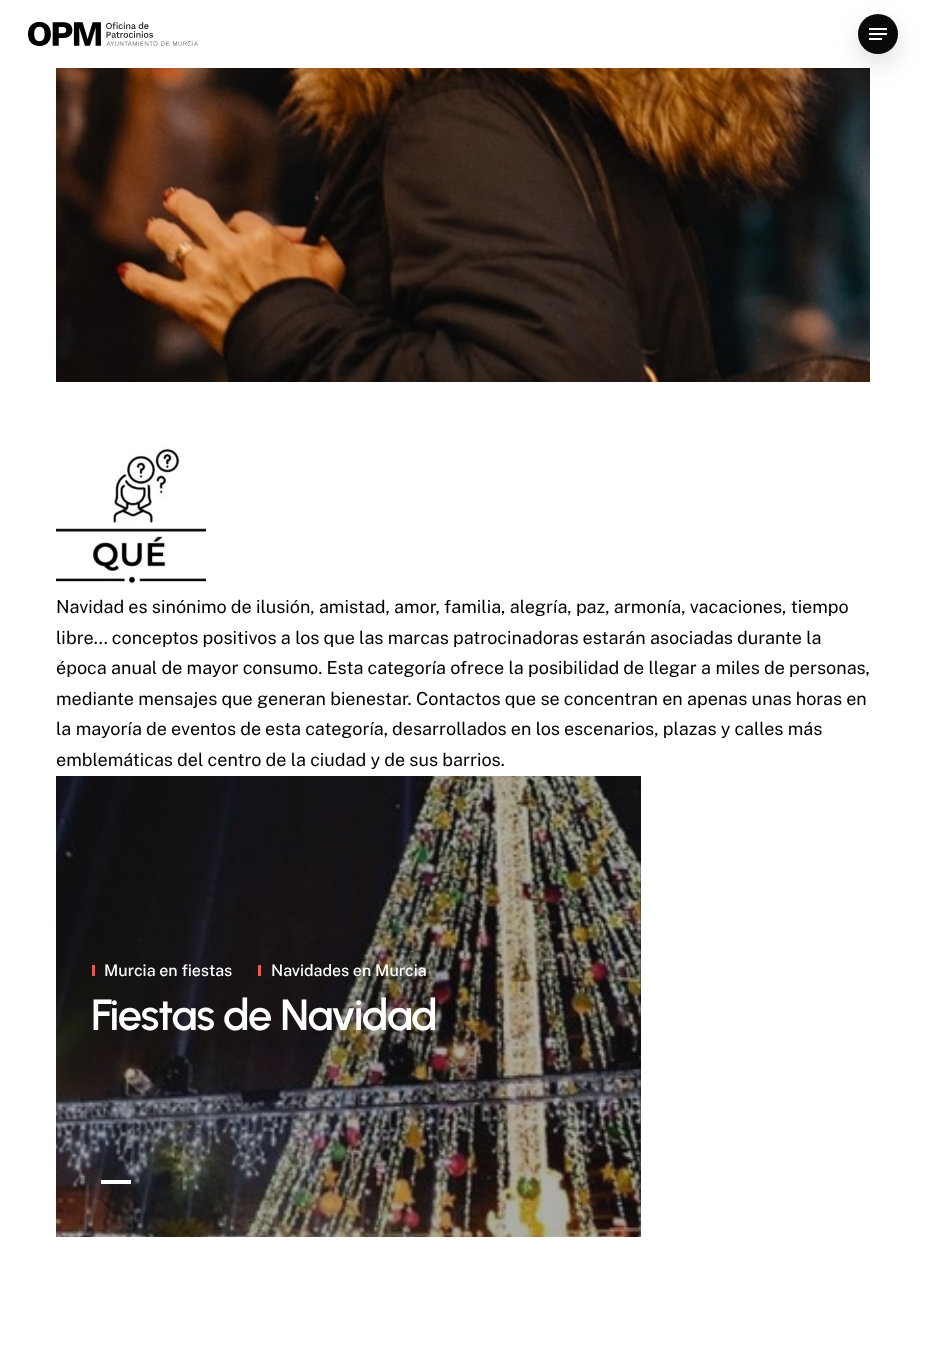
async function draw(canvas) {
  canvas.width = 926;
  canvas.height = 1351;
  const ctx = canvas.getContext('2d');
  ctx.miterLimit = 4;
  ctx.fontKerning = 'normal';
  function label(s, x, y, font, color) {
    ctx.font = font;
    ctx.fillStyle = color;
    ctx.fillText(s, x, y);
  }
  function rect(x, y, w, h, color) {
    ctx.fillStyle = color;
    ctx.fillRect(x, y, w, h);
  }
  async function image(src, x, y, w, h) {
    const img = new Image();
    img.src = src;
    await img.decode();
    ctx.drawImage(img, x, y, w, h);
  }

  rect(0, 0, 926, 1351, '#fff');
  await image('assets/img1.png', 28, 22, 170, 24);
  await image('assets/img2.png', 56, 68, 814, 314);
  ctx.fillStyle = '#00000021';
  ctx.filter = 'blur(12.5px)';
  ctx.beginPath();
  ctx.roundRect(858, 24, 40, 40, 20);
  ctx.fill();
  ctx.filter = 'none';
  ctx.fillStyle = '#0a0a0a';
  ctx.beginPath();
  ctx.arc(878, 34, 20, 0, 2 * Math.PI);
  ctx.fill();
  rect(869, 28, 18, 2, '#fff');
  rect(869, 38, 13, 2, '#fff');
  rect(869, 33, 18, 2, '#fff');
  await image('assets/img3.png', 56, 445, 150, 141);
  label('Navidad es sinónimo de ilusión, amistad, amor, familia, alegría, paz, armonía, vacaciones, tiempo', 56, 613, '18px Public Sans', '#000');
  label('libre... conceptos positivos a los que las marcas patrocinadoras estarán asociadas durante la', 56, 644, '18px Public Sans', '#000');
  label('época anual de mayor consumo. Esta categoría ofrece la posibilidad de llegar a miles de personas,', 56, 674, '18px Public Sans', '#000');
  label('mediante mensajes que generan bienestar. Contactos que se concentran en apenas unas horas en', 56, 705, '18px Public Sans', '#000');
  label('la mayoría de eventos de esta categoría, desarrollados en los escenarios, plazas y calles más', 56, 735, '18px Public Sans', '#000');
  label('emblemáticas del centro de la ciudad y de sus barrios.', 56, 766, '18px Public Sans', '#000');
  await image('assets/img4.png', 56, 776, 585, 461);
  rect(92, 965, 3, 11, '#ff5149');
  label('Murcia en fiestas', 104, 976, '500 16px Public Sans', '#fff');
  rect(258, 965, 3, 11, '#ff5149');
  label('Navidades en Murcia', 271, 976, '500 16px Public Sans', '#fff');
  ctx.letterSpacing = '-1.25px';
  label('Fiestas de Navidad', 91, 1030, '600 43.5px Urbanist', '#fff');
  rect(101, 1180, 30, 4, '#fff');
}

draw(document.querySelector('canvas'));
